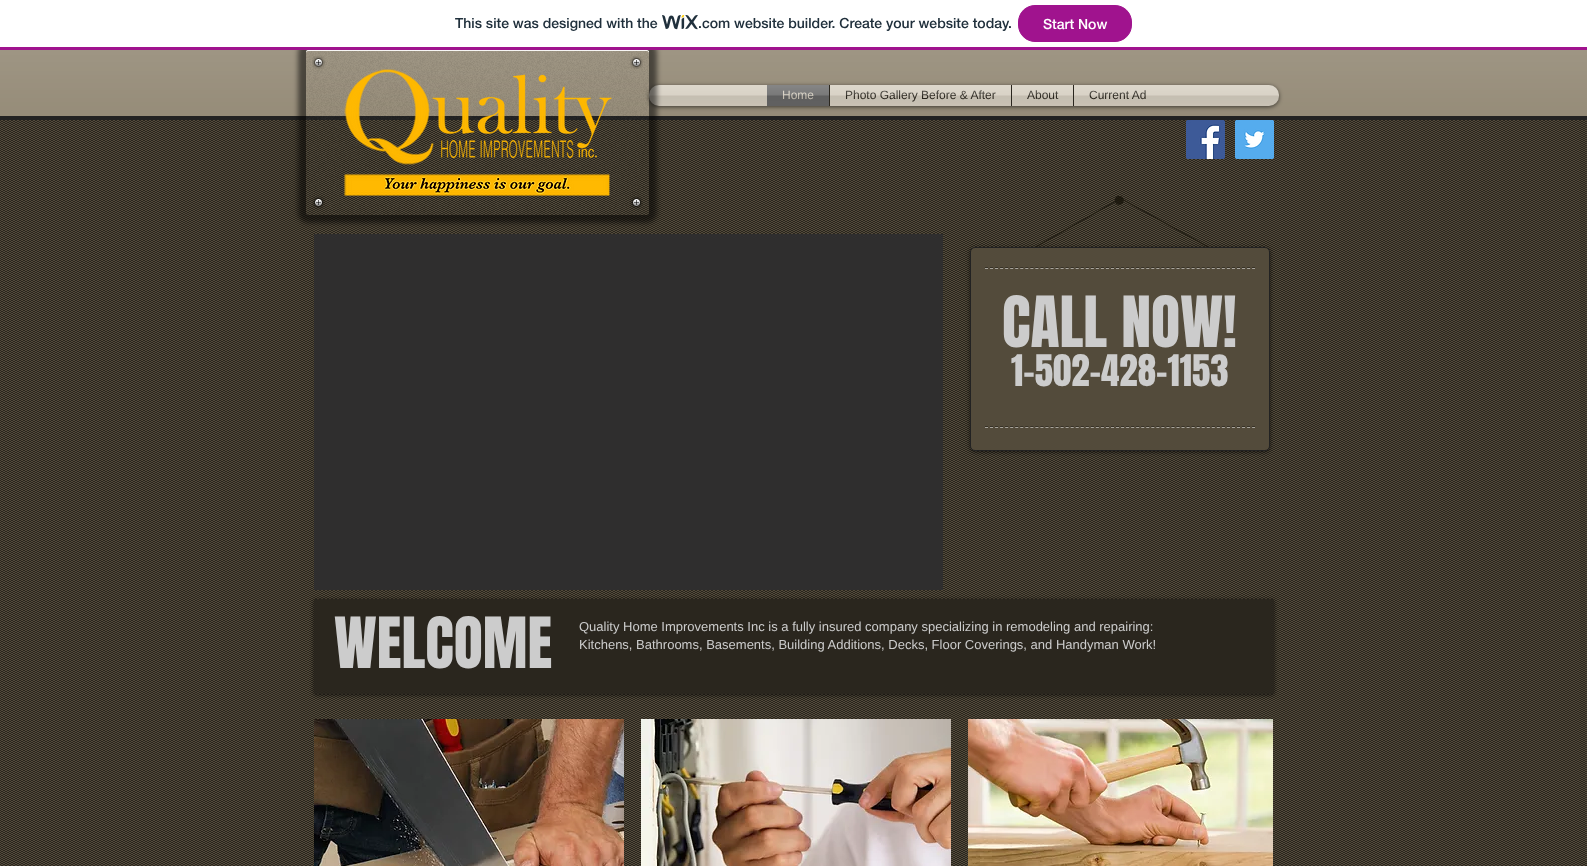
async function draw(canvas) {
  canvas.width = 1587;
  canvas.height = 866;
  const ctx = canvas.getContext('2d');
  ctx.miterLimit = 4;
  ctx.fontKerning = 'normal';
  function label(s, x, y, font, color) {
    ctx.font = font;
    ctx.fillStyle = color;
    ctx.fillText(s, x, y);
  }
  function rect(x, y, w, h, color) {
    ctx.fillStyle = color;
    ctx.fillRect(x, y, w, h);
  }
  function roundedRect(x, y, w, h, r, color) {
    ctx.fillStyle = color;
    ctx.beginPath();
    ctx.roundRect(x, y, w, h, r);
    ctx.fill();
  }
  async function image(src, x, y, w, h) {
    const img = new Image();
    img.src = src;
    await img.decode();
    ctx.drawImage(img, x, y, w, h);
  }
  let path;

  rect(0, 0, 1587, 866, '#534b3b');
  rect(0, 50, 1587, 66, '#7d7159');
  rect(0, 116, 1587, 4, '#222');
  await image('assets/img2.png', 0, 50, 1587, 66);
  ctx.fillStyle = '#00000099';
  ctx.filter = 'blur(2px)';
  ctx.beginPath();
  ctx.roundRect(649, 86, 630, 21, 10);
  ctx.fill();
  ctx.filter = 'none';
  roundedRect(649, 85, 630, 21, 10, '#d4cdbf');
  await image('assets/img3.png', 649, 85, 630, 21);
  await image('assets/img20.png', 0, 120, 1587, 746);
  ctx.save();
  path = new Path2D('M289 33H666V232H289ZM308 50H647C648 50 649 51 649 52V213C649 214 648 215 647 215H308C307 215 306 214 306 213V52C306 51 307 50 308 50Z');
  ctx.clip(path, 'evenodd');
  ctx.fillStyle = '#00000087';
  ctx.filter = 'blur(2.5px)';
  ctx.beginPath();
  ctx.roundRect(298, 42, 359, 181, 10);
  ctx.fill();
  ctx.filter = 'none';
  ctx.restore();
  rect(0, 0, 1587, 47, '#fff');
  rect(0, 47, 1587, 3, '#a0138e');
  label('This site was designed with the', 455, 28, '500 14px "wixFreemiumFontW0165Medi"', '#20303c');
  await image('assets/img1.png', 662, 15, 36, 15);
  label('.com website builder. Create your website today.', 698, 28, '500 14px "wixFreemiumFontW0165Medi"', '#20303c');
  ctx.fillStyle = '#a0138e';
  ctx.beginPath();
  ctx.roundRect(1018.5, 5.5, 113, 36, 16.5);
  ctx.fill();
  ctx.strokeStyle = '#a0138e';
  ctx.stroke();
  label('Start Now', 1043, 29, '500 14px "wixFreemiumFontW0165Medi"', '#fff');
  rect(767, 85, 62, 21, '#666');
  label('Home', 782, 99, '12px Liberation Sans', '#d4cdbf');
  await image('assets/img4.png', 767, 85, 62, 21);
  rect(830, 85, 181, 21, '#d4cdbf');
  rect(829, 85, 1, 21, '#2a261e');
  label('Photo Gallery Before & After', 845, 99, '12px Liberation Sans', '#2a261e');
  await image('assets/img5.png', 830, 85, 181, 21);
  rect(1012, 85, 61, 21, '#d4cdbf');
  rect(1011, 85, 1, 21, '#2a261e');
  label('About', 1027, 99, '12px Liberation Sans', '#2a261e');
  await image('assets/img6.png', 1012, 85, 61, 21);
  rect(1074, 85, 87, 21, '#d4cdbf');
  rect(1073, 85, 1, 21, '#2a261e');
  label('Current Ad', 1089, 99, '12px Liberation Sans', '#2a261e');
  await image('assets/img7.png', 1074, 85, 87, 21);
  await image('assets/img8.png', 1186, 120, 39, 39);
  await image('assets/img9.png', 1235, 120, 39, 39);
  await image('assets/img10.png', 306, 50, 343, 165);
  ctx.fillStyle = '#ffffffeb';
  path = new Path2D('M308 51C307 51 306 52 306 53C306 52 306 50 308 50H647L649 51V53C649 52 648 51 647 51Z');
  ctx.fill(path);
  await image('assets/img11.png', 312, 56, 13, 13);
  await image('assets/img12.png', 630, 56, 13, 13);
  await image('assets/img13.png', 344, 69, 268, 127);
  await image('assets/img14.png', 312, 196, 13, 13);
  await image('assets/img15.png', 630, 196, 13, 13);
  await image('assets/img16.png', 1036, 196, 172, 51);
  rect(314, 234, 629, 356, '#2f2e2e');
  ctx.fillStyle = '#00000099';
  ctx.filter = 'blur(2px)';
  ctx.beginPath();
  ctx.roundRect(970, 248, 300, 204, 5);
  ctx.fill();
  ctx.filter = 'none';
  ctx.fillStyle = '#534b3b';
  ctx.beginPath();
  ctx.roundRect(970.5, 247.5, 299, 203, 4.5);
  ctx.fill();
  ctx.strokeStyle = '#222';
  ctx.stroke();
  path = new Path2D('M985 267.5H1255');
  ctx.strokeStyle = '#363126';
  ctx.setLineDash([3, 2.04]);
  ctx.stroke(path);
  path = new Path2D('M985 268.5H1255');
  ctx.strokeStyle = '#a9a59d';
  ctx.stroke(path);
  label('CALL NOW!', 1002, 347, '60px Anton', '#ccc');
  label('1-502-428-1153', 1011, 386, '37px Anton', '#ccc');
  path = new Path2D('M985 426.5H1255');
  ctx.strokeStyle = '#363126';
  ctx.stroke(path);
  path = new Path2D('M985 427.5H1255');
  ctx.strokeStyle = '#a9a59d';
  ctx.stroke(path);
  ctx.fillStyle = '#00000099';
  ctx.filter = 'blur(2px)';
  ctx.beginPath();
  ctx.rect(314, 600, 960, 95);
  ctx.fill();
  ctx.filter = 'none';
  rect(314, 599, 960, 95, '#2a261e');
  label('WELCOME', 334, 668, '60px Anton', '#ccc');
  label('Quality Home Improvements Inc is a fully insured company specializing in remodeling and repairing:', 579, 631, '13px Liberation Sans', '#ccc');
  label('Kitchens, Bathrooms, Basements, Building Additions, Decks, Floor Coverings, and Handyman Work!', 579, 649, '13px Liberation Sans', '#ccc');
  await image('assets/img17.png', 314, 719, 310, 147);
  await image('assets/img18.png', 641, 719, 310, 147);
  await image('assets/img19.png', 968, 719, 305, 147);
}

draw(document.querySelector('canvas'));
